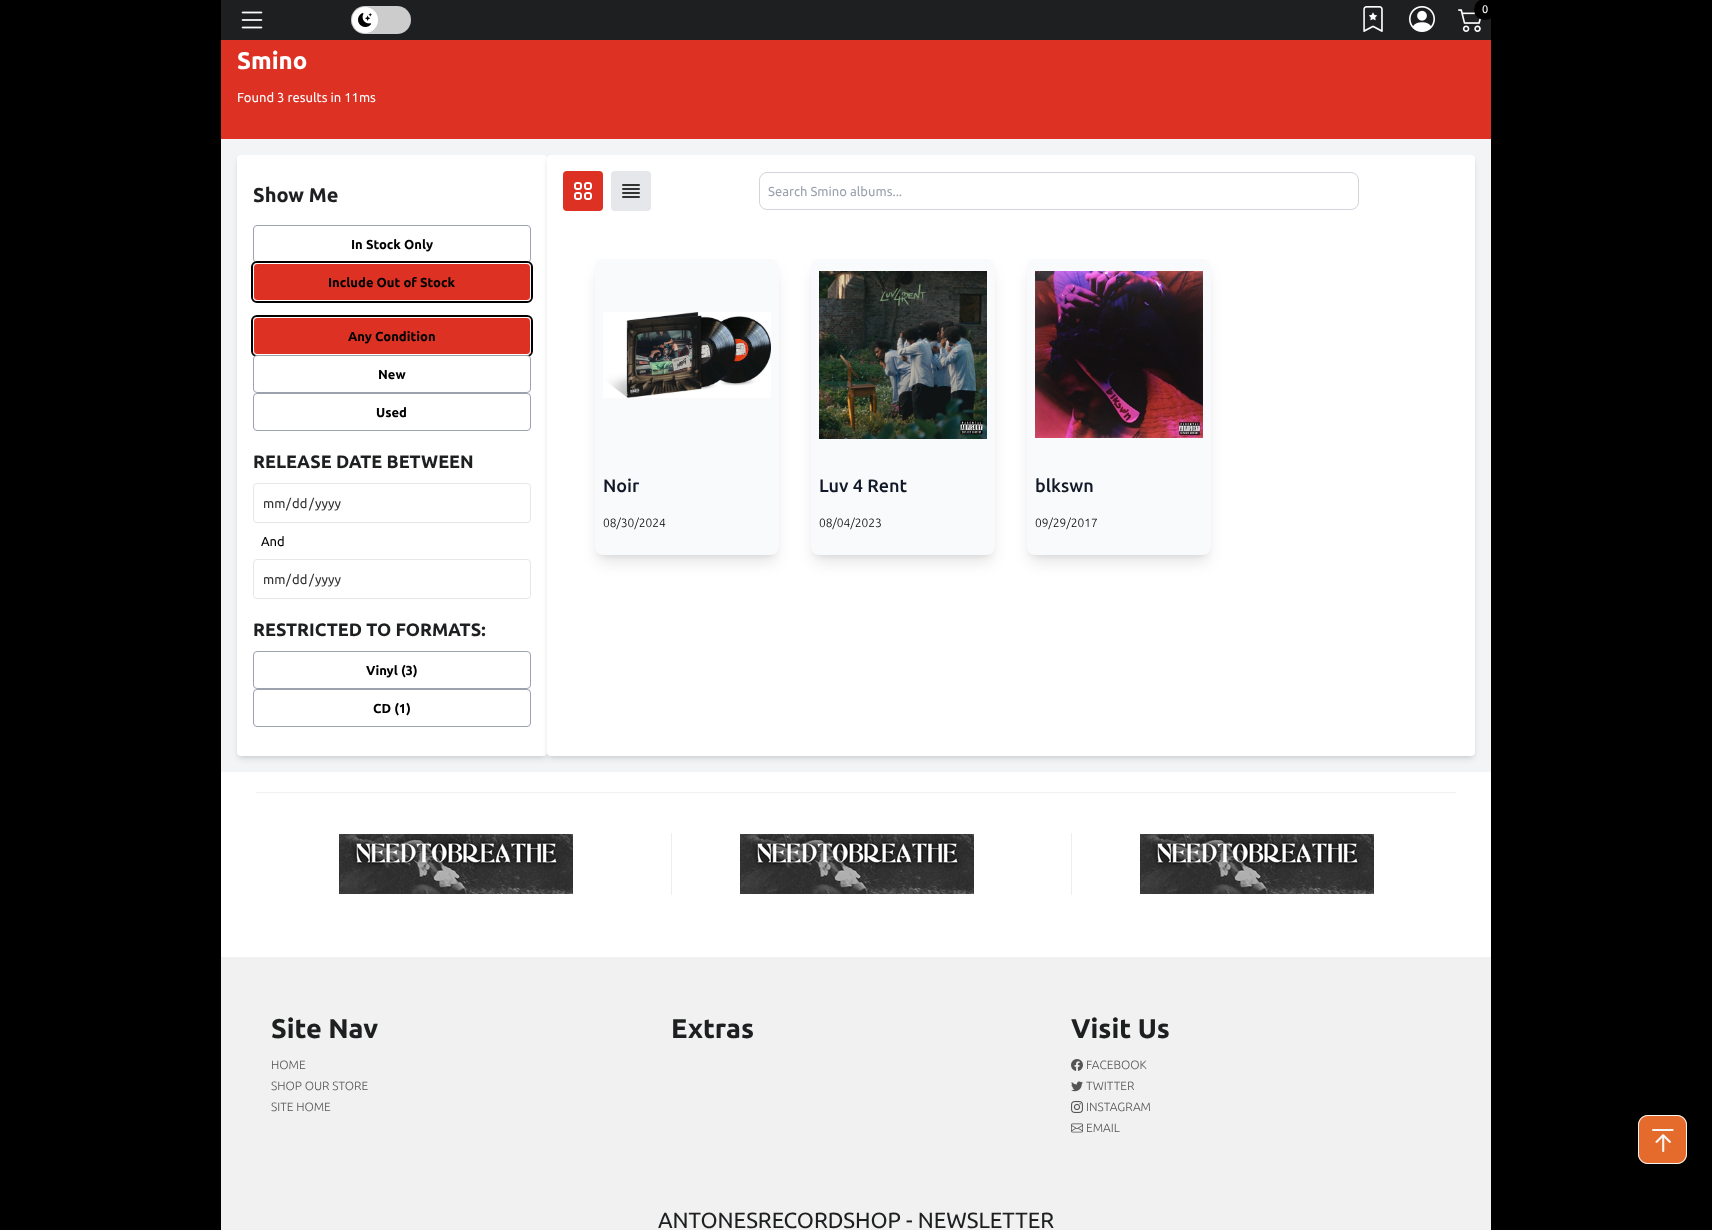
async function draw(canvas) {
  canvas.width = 1712;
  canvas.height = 1230;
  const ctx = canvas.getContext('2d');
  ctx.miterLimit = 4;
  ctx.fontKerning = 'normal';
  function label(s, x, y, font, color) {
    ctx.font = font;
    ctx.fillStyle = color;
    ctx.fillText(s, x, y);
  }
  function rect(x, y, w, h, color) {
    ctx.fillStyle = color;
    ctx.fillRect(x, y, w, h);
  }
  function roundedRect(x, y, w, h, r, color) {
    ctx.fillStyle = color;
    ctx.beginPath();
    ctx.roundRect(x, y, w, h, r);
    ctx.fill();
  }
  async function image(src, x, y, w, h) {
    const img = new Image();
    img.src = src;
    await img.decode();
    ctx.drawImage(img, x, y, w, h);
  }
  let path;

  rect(0, 0, 1712, 1230, '#000');
  rect(221, 772, 1270, 185, '#fff');
  rect(221, 0, 1270, 40, '#1d1f20');
  await image('assets/img1.png', 241, 11, 22, 18);
  roundedRect(351, 6, 60, 28, 14, '#ccc');
  ctx.fillStyle = '#fff';
  ctx.beginPath();
  ctx.arc(365, 20, 13, 0, 2 * Math.PI);
  ctx.fill();
  await image('assets/img2.png', 358, 13, 14, 14);
  await image('assets/img3.png', 1363, 6, 20, 26);
  await image('assets/img4.png', 1409, 6, 26, 26);
  await image('assets/img5.png', 1458, 9, 23, 23);
  roundedRect(1474, -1, 22, 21, 10.5, '#000');
  label('0', 1482, 13, '11px Ubuntu', '#fff');
  rect(221, 40, 1270, 99, '#dc3123');
  label('Smino', 237, 69, 'bold 24px Ubuntu', '#fff');
  label('Found 3 results in 11ms', 237, 102, '13px Ubuntu', '#fff');
  rect(221, 139, 1270, 633, '#f3f4f6');
  ctx.fillStyle = '#0000001a';
  ctx.filter = 'blur(2px)';
  ctx.beginPath();
  ctx.roundRect(239, 159, 306, 597, 2);
  ctx.fill();
  ctx.filter = 'none';
  ctx.filter = 'blur(3px)';
  ctx.beginPath();
  ctx.roundRect(238, 160, 308, 599, 3);
  ctx.fill();
  ctx.filter = 'none';
  roundedRect(237, 155, 310, 601, 4, '#fff');
  label('Show Me', 253, 202, 'bold 20px Ubuntu', '#1d1f20');
  ctx.beginPath();
  ctx.roundRect(253.5, 225.5, 277, 37, 3.5);
  ctx.strokeStyle = '#9ca3af';
  ctx.stroke();
  label('In Stock Only', 351, 249, 'bold 13px Ubuntu', '#000');
  ctx.beginPath();
  ctx.roundRect(252, 262, 280, 40, 5);
  ctx.strokeStyle = '#000';
  ctx.lineWidth = 2;
  ctx.stroke();
  ctx.fillStyle = '#dc3123';
  ctx.beginPath();
  ctx.roundRect(253.5, 263.5, 277, 37, 3.5);
  ctx.fill();
  ctx.strokeStyle = '#fff';
  ctx.lineWidth = 1;
  ctx.stroke();
  label('Include Out of Stock', 328, 287, 'bold 13px Ubuntu', '#000');
  ctx.beginPath();
  ctx.roundRect(252, 316, 280, 40, 5);
  ctx.strokeStyle = '#000';
  ctx.lineWidth = 2;
  ctx.stroke();
  ctx.fillStyle = '#dc3123';
  ctx.beginPath();
  ctx.roundRect(253.5, 317.5, 277, 37, 3.5);
  ctx.fill();
  ctx.strokeStyle = '#fff';
  ctx.lineWidth = 1;
  ctx.stroke();
  label('Any Condition', 348, 341, 'bold 13px Ubuntu', '#000');
  ctx.fillStyle = '#fff';
  ctx.beginPath();
  ctx.roundRect(253.5, 355.5, 277, 37, 3.5);
  ctx.fill();
  ctx.strokeStyle = '#9ca3af';
  ctx.stroke();
  label('New', 378, 379, 'bold 13px Ubuntu', '#000');
  ctx.beginPath();
  ctx.roundRect(253.5, 393.5, 277, 37, 3.5);
  ctx.stroke();
  label('Used', 376, 417, 'bold 13px Ubuntu', '#000');
  label('RELEASE DATE BETWEEN', 253, 468, 'bold 18px Ubuntu', '#1d1f20');
  ctx.beginPath();
  ctx.roundRect(253.5, 483.5, 277, 39, 3.5);
  ctx.strokeStyle = '#e5e7eb';
  ctx.stroke();
  label('mm', 263, 508, '13px Ubuntu', '#323232');
  label('/', 286, 508, '13px Ubuntu', '#323232');
  label('dd', 292, 508, '13px Ubuntu', '#323232');
  label('/', 309, 508, '13px Ubuntu', '#323232');
  label('yyyy', 315, 508, '13px Ubuntu', '#323232');
  label('And', 261, 546, '13px Ubuntu', '#000');
  ctx.beginPath();
  ctx.roundRect(253.5, 559.5, 277, 39, 3.5);
  ctx.stroke();
  label('mm', 263, 584, '13px Ubuntu', '#323232');
  label('/', 286, 584, '13px Ubuntu', '#323232');
  label('dd', 292, 584, '13px Ubuntu', '#323232');
  label('/', 309, 584, '13px Ubuntu', '#323232');
  label('yyyy', 315, 584, '13px Ubuntu', '#323232');
  label('RESTRICTED TO FORMATS:', 253, 636, 'bold 18px Ubuntu', '#1d1f20');
  ctx.beginPath();
  ctx.roundRect(253.5, 651.5, 277, 37, 3.5);
  ctx.strokeStyle = '#9ca3af';
  ctx.stroke();
  label('Vinyl (3)', 366, 675, 'bold 13px Ubuntu', '#000');
  ctx.beginPath();
  ctx.roundRect(253.5, 689.5, 277, 37, 3.5);
  ctx.stroke();
  label('CD (1)', 373, 713, 'bold 13px Ubuntu', '#000');
  ctx.fillStyle = '#0000001a';
  ctx.filter = 'blur(2px)';
  ctx.beginPath();
  ctx.roundRect(549, 159, 924, 597, 2);
  ctx.fill();
  ctx.filter = 'none';
  ctx.filter = 'blur(3px)';
  ctx.beginPath();
  ctx.roundRect(548, 160, 926, 599, 3);
  ctx.fill();
  ctx.filter = 'none';
  roundedRect(547, 155, 928, 601, 4, '#fff');
  roundedRect(563, 171, 40, 40, 4, '#dc3123');
  await image('assets/img6.png', 574, 182, 18, 18);
  roundedRect(611, 171, 40, 40, 4, '#e5e7eb');
  path = new Path2D('M623 185H639M623 189H639M623 193H639M623 197H639');
  ctx.strokeStyle = '#323232';
  ctx.lineWidth = 2;
  ctx.lineCap = 'round';
  ctx.lineJoin = 'round';
  ctx.stroke(path);
  ctx.beginPath();
  ctx.roundRect(759.5, 172.5, 599, 37, 7.5);
  ctx.strokeStyle = '#d1d5db';
  ctx.lineWidth = 1;
  ctx.lineJoin = 'miter';
  ctx.stroke();
  label('Search Smino albums...', 768, 196, '13px Ubuntu', '#9ca3af');
  ctx.fillStyle = '#0000001a';
  ctx.filter = 'blur(3px)';
  ctx.beginPath();
  ctx.roundRect(599, 267, 176, 288, 4);
  ctx.fill();
  ctx.filter = 'none';
  ctx.filter = 'blur(7.5px)';
  ctx.beginPath();
  ctx.roundRect(598, 272, 178, 290, 5);
  ctx.fill();
  ctx.filter = 'none';
  roundedRect(595, 259, 184, 296, 8, '#f9fafb');
  await image('assets/img7.png', 603, 312, 168, 86);
  label('Noir', 603, 492, '500 18px Ubuntu', '#111827');
  label('08/30/2024', 603, 527, '300 12px Ubuntu', '#000');
  ctx.fillStyle = '#0000001a';
  ctx.filter = 'blur(3px)';
  ctx.beginPath();
  ctx.roundRect(815, 267, 176, 288, 4);
  ctx.fill();
  ctx.filter = 'none';
  ctx.filter = 'blur(7.5px)';
  ctx.beginPath();
  ctx.roundRect(814, 272, 178, 290, 5);
  ctx.fill();
  ctx.filter = 'none';
  roundedRect(811, 259, 184, 296, 8, '#f9fafb');
  await image('assets/img8.png', 819, 271, 168, 168);
  label('Luv 4 Rent', 819, 492, '500 18px Ubuntu', '#111827');
  label('08/04/2023', 819, 527, '300 12px Ubuntu', '#000');
  ctx.fillStyle = '#0000001a';
  ctx.filter = 'blur(3px)';
  ctx.beginPath();
  ctx.roundRect(1031, 267, 176, 288, 4);
  ctx.fill();
  ctx.filter = 'none';
  ctx.filter = 'blur(7.5px)';
  ctx.beginPath();
  ctx.roundRect(1030, 272, 178, 290, 5);
  ctx.fill();
  ctx.filter = 'none';
  roundedRect(1027, 259, 184, 296, 8, '#f9fafb');
  await image('assets/img9.png', 1035, 271, 168, 167);
  label('blkswn', 1035, 492, '500 18px Ubuntu', '#111827');
  label('09/29/2017', 1035, 527, '300 12px Ubuntu', '#000');
  rect(256, 792, 1200, 1, '#f1f1f1');
  await image('assets/img10.png', 339, 834, 234, 60);
  rect(671, 833, 1, 62, '#eee');
  await image('assets/img10.png', 740, 834, 234, 60);
  rect(1071, 833, 1, 62, '#eee');
  await image('assets/img10.png', 1140, 834, 234, 60);
  rect(221, 957, 1270, 273, '#f1f1f1');
  label('Site Nav', 271, 1038, 'bold 27px Ubuntu', '#1d1f20');
  label('HOME', 271, 1069, '300 12px Ubuntu', '#555');
  label('SHOP OUR STORE', 271, 1090, '300 12px Ubuntu', '#555');
  label('SITE HOME', 271, 1111, '300 12px Ubuntu', '#555');
  label('Extras', 671, 1038, 'bold 27px Ubuntu', '#1d1f20');
  label('Visit Us', 1071, 1038, 'bold 27px Ubuntu', '#1d1f20');
  await image('assets/img11.png', 1071, 1059, 12, 12);
  label('FACEBOOK', 1086, 1069, '300 12px Ubuntu', '#555');
  await image('assets/img12.png', 1071, 1081, 12, 11);
  label('TWITTER', 1086, 1090, '300 12px Ubuntu', '#555');
  await image('assets/img13.png', 1071, 1101, 12, 12);
  label('INSTAGRAM', 1086, 1111, '300 12px Ubuntu', '#555');
  await image('assets/img14.png', 1071, 1123, 12, 10);
  label('EMAIL', 1086, 1132, '300 12px Ubuntu', '#555');
  label('ANTONESRECORDSHOP - NEWSLETTER', 658, 1228, '22px Ubuntu', '#1d1f20');
  await image('assets/img15.png', 1638, 1115, 49, 49);
}

draw(document.querySelector('canvas'));
